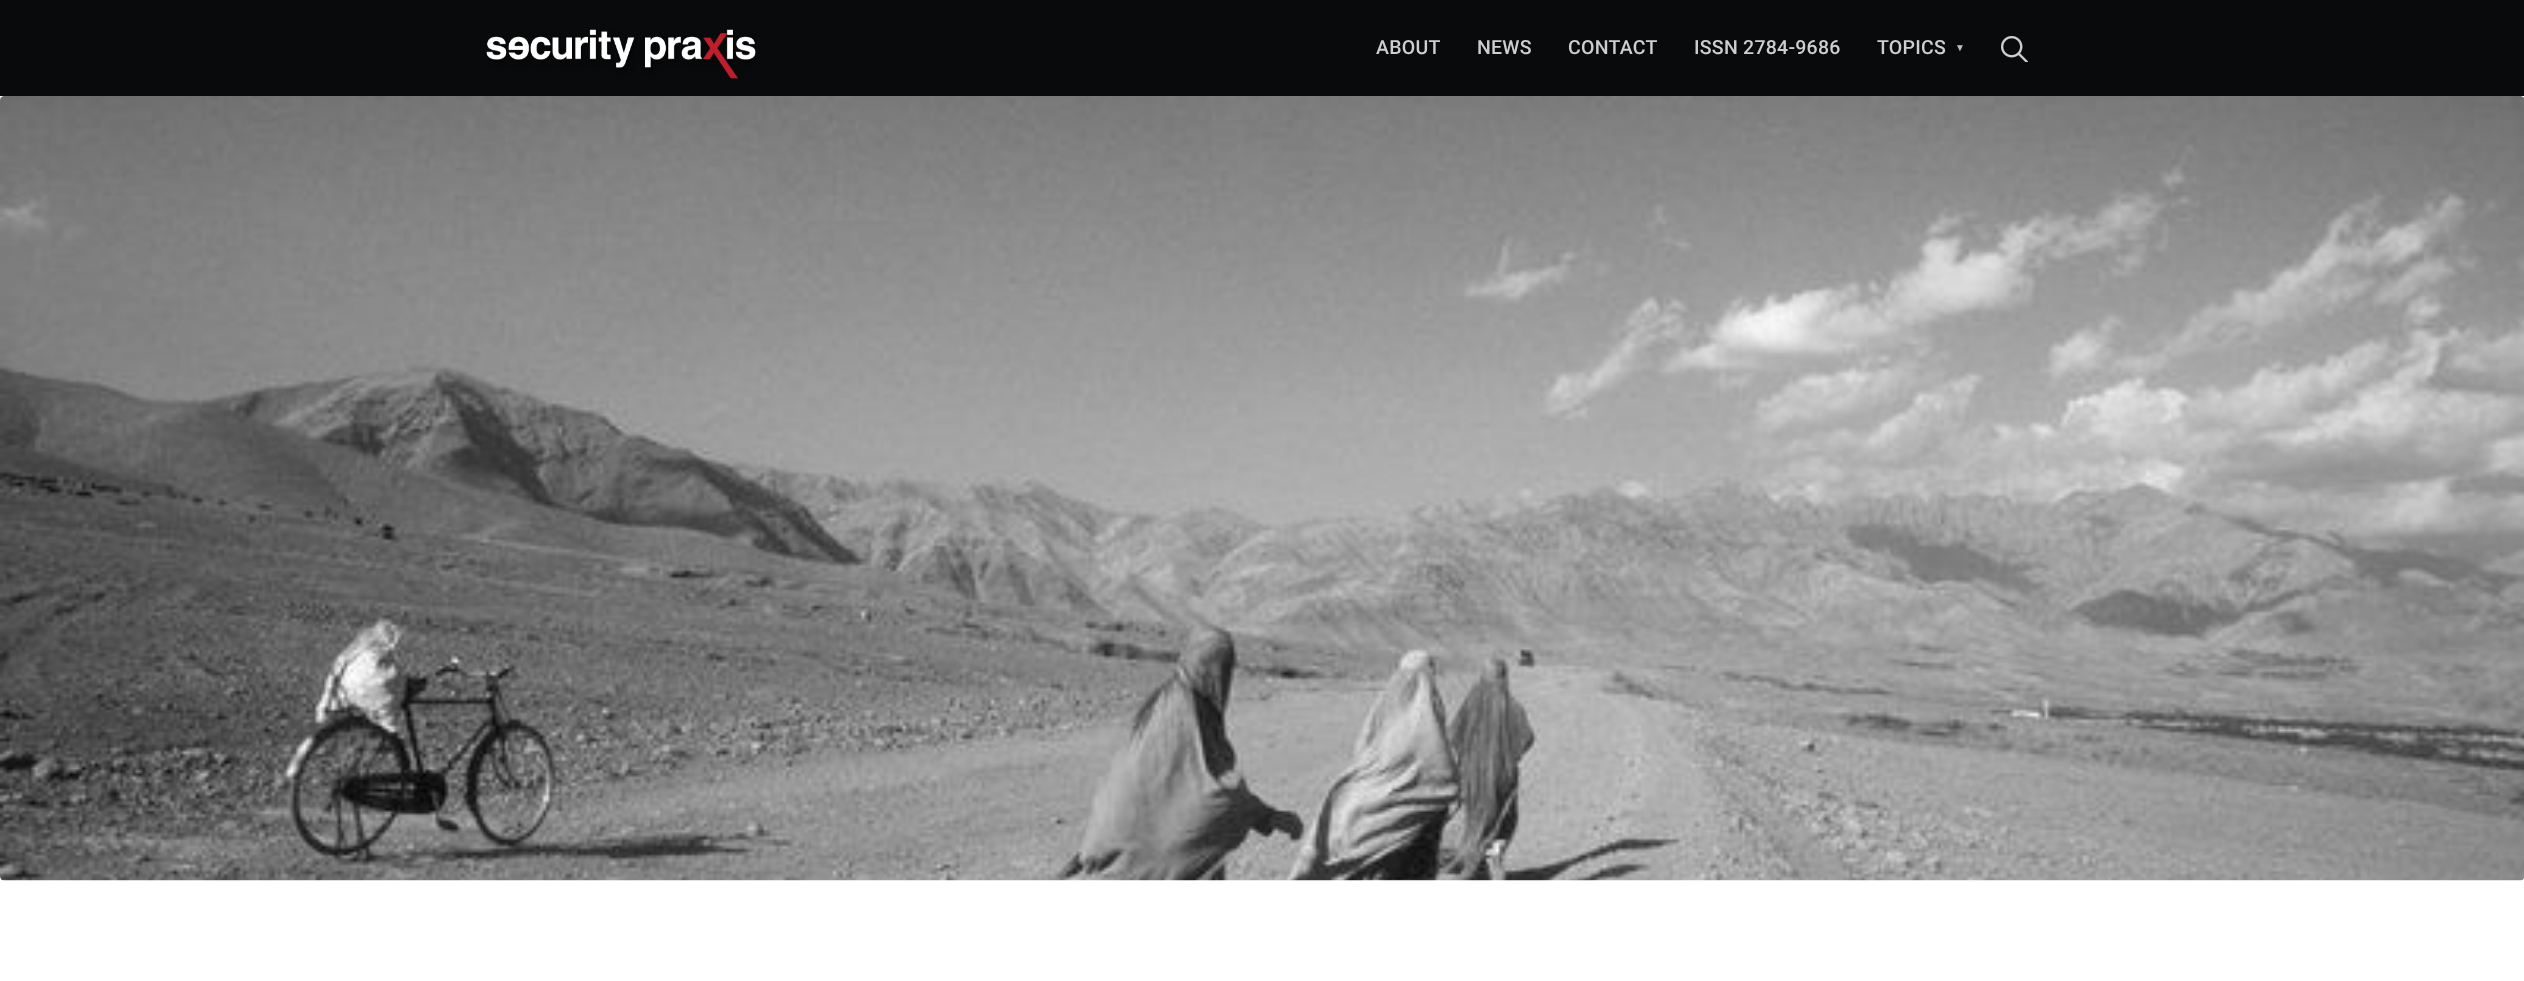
async function draw(canvas) {
  canvas.width = 2524;
  canvas.height = 981;
  const ctx = canvas.getContext('2d');
  ctx.miterLimit = 4;
  ctx.fontKerning = 'normal';
  function label(s, x, y, font, color) {
    ctx.font = font;
    ctx.fillStyle = color;
    ctx.fillText(s, x, y);
  }
  function rect(x, y, w, h, color) {
    ctx.fillStyle = color;
    ctx.fillRect(x, y, w, h);
  }
  async function image(src, x, y, w, h) {
    const img = new Image();
    img.src = src;
    await img.decode();
    ctx.drawImage(img, x, y, w, h);
  }

  rect(0, 0, 2524, 981, '#fff');
  rect(0, 0, 2524, 96, '#090a0b');
  await image('assets/img1.png', 486, 29, 270, 50);
  ctx.letterSpacing = '0.25px';
  label('ABOUT', 1376, 54, '500 19.5px Roboto', '#cecece');
  label('NEWS', 1477, 54, '500 19.5px Roboto', '#cecece');
  label('CONTACT', 1568, 54, '500 19.5px Roboto', '#cecece');
  label('ISSN 2784-9686', 1694, 54, '500 19.5px Roboto', '#cecece');
  label('TOPICS', 1877, 54, '500 19.5px Roboto', '#cecece');
  label('▼', 1955, 51, '10px Liberation Sans', '#c0c0c1');
  await image('assets/img2.png', 2001, 36, 27, 26);
  await image('assets/img3.png', 0, 96, 2524, 785);
}

draw(document.querySelector('canvas'));
